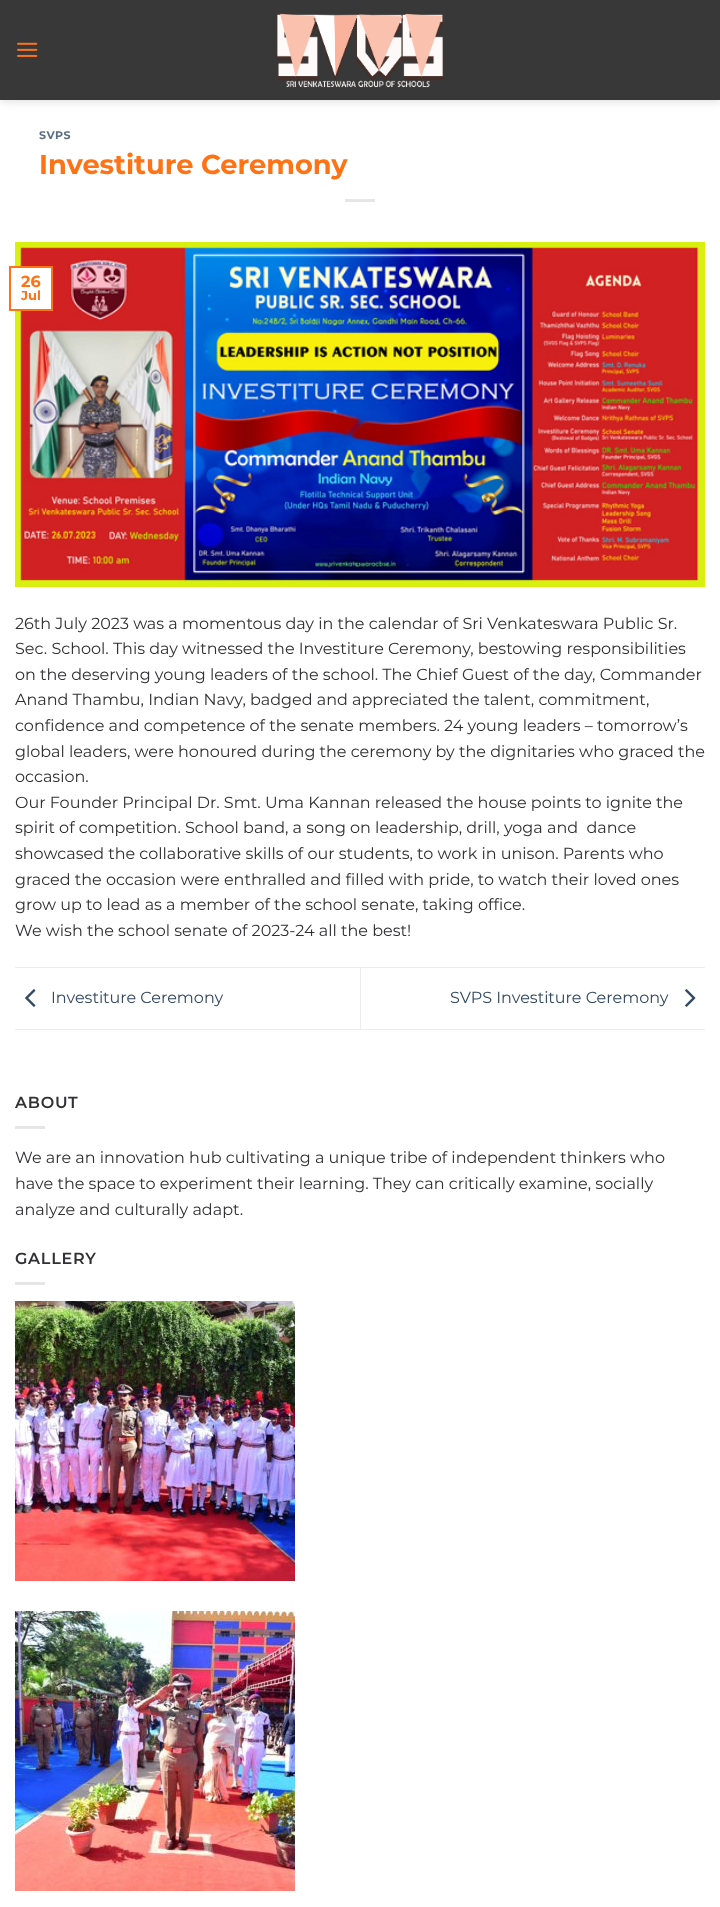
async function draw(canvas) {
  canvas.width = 720;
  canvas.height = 1907;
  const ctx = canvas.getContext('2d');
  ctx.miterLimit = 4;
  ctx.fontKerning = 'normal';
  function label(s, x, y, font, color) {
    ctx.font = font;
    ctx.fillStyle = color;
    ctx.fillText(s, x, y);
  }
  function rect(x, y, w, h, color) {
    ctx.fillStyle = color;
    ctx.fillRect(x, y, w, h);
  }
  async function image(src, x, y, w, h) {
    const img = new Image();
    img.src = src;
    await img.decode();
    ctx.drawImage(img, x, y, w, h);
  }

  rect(0, 0, 720, 1907, '#fff');
  ctx.fillStyle = '#00000026';
  ctx.filter = 'blur(5px)';
  ctx.beginPath();
  ctx.rect(1, 1, 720, 100);
  ctx.fill();
  ctx.filter = 'none';
  rect(0, 0, 720, 100, '#393838');
  await image('assets/img1.png', 17, 42, 21, 15);
  await image('assets/img2.png', 276, 13, 167, 75);
  ctx.letterSpacing = '0.5px';
  label('SVPS', 39, 139, 'bold 11px Montserrat', '#5c6d81');
  ctx.letterSpacing = '0px';
  label('Investiture Ceremony', 39, 174, 'bold 27.25px Montserrat', '#ff7315');
  rect(345, 199, 30, 3, '#e6e6e6');
  await image('assets/img3.png', 15, 242, 690, 345);
  rect(15, 268, 36, 41, '#fff');
  ctx.strokeStyle = '#ff7315';
  ctx.lineWidth = 2;
  ctx.strokeRect(10, 267, 42, 43);
  label('26', 21, 287, 'bold 16px Montserrat', '#ff7315');
  label('Jul', 21, 300, 'bold 13px Montserrat', '#ff7315');
  label('26th July 2023 was a momentous day in the calendar of Sri Venkateswara Public Sr.', 15, 629, '16px Montserrat', '#313033');
  label('Sec. School. This day witnessed the Investiture Ceremony, bestowing responsibilities', 15, 654, '16px Montserrat', '#313033');
  label('on the deserving young leaders of the school. The Chief Guest of the day, Commander', 15, 680, '16px Montserrat', '#313033');
  label('Anand Thambu, Indian Navy, badged and appreciated the talent, commitment,', 15, 705, '16px Montserrat', '#313033');
  label('confidence and competence of the senate members. 24 young leaders – tomorrow’s', 15, 731, '16px Montserrat', '#313033');
  label('global leaders, were honoured during the ceremony by the dignitaries who graced the', 15, 757, '16px Montserrat', '#313033');
  label('occasion.', 15, 782, '16px Montserrat', '#313033');
  label('Our Founder Principal Dr. Smt. Uma Kannan released the house points to ignite the', 15, 808, '16px Montserrat', '#313033');
  label('spirit of competition. School band, a song on leadership, drill, yoga and  dance', 15, 833, '16px Montserrat', '#313033');
  label('showcased the collaborative skills of our students, to work in unison. Parents who', 15, 859, '16px Montserrat', '#313033');
  label('graced the occasion were enthralled and filled with pride, to watch their loved ones', 15, 885, '16px Montserrat', '#313033');
  label('grow up to lead as a member of the school senate, taking office.', 15, 910, '16px Montserrat', '#313033');
  label('We wish the school senate of 2023-24 all the best!', 15, 936, '16px Montserrat', '#313033');
  rect(15, 967, 690, 1, '#ececec');
  rect(15, 1029, 690, 1, '#ececec');
  await image('assets/img4.png', 25, 989, 11, 18);
  label('Investiture Ceremony', 51, 1003, '16px Montserrat', '#334862');
  rect(360, 968, 1, 61, '#ececec');
  label('SVPS Investiture Ceremony', 450, 1003, '16px Montserrat', '#334862');
  await image('assets/img5.png', 685, 989, 11, 18);
  ctx.letterSpacing = '0.75px';
  label('ABOUT', 15, 1108, '600 16px Montserrat', '#313033');
  rect(15, 1126, 30, 3, '#e6e6e6');
  ctx.letterSpacing = '0px';
  label('We are an innovation hub cultivating a unique tribe of independent thinkers who', 15, 1163, '16px Montserrat', '#313033');
  label('have the space to experiment their learning. They can critically examine, socially', 15, 1189, '16px Montserrat', '#313033');
  label('analyze and culturally adapt.', 15, 1215, '16px Montserrat', '#313033');
  ctx.letterSpacing = '0.75px';
  label('GALLERY', 15, 1264, '600 16px Montserrat', '#313033');
  rect(15, 1282, 30, 3, '#e6e6e6');
  await image('assets/img6.png', 15, 1301, 280, 280);
  await image('assets/img7.png', 15, 1611, 280, 280);
}

draw(document.querySelector('canvas'));
